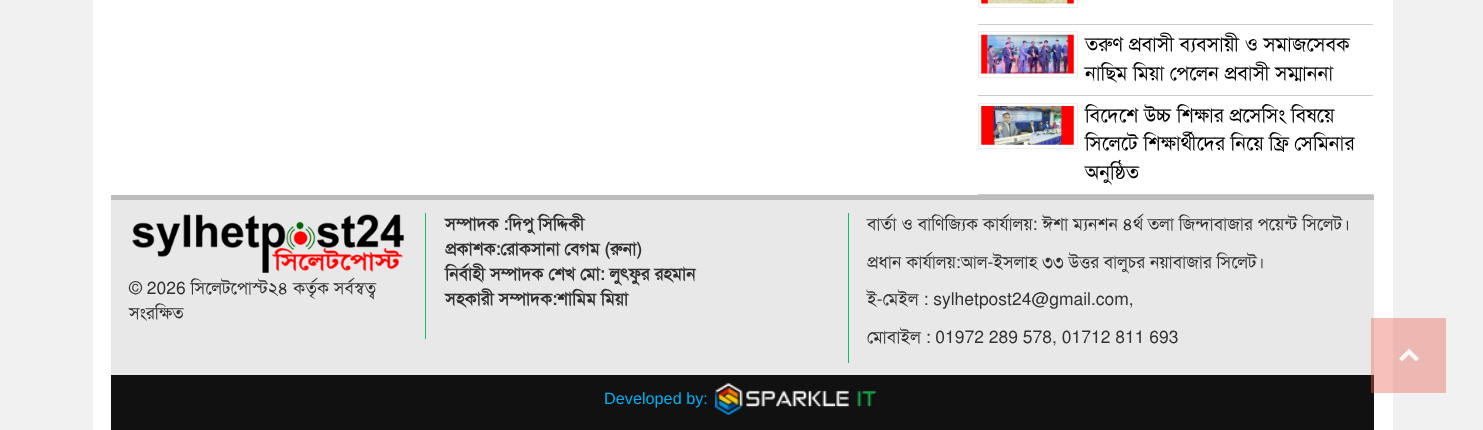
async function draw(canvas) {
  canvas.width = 1483;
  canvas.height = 430;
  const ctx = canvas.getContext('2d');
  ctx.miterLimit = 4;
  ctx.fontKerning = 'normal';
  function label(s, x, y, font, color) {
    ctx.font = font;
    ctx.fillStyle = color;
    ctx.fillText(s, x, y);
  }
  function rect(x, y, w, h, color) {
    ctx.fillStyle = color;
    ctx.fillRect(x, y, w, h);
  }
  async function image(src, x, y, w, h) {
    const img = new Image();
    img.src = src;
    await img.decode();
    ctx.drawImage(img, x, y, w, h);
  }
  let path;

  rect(0, 0, 1483, 430, '#f1f1f1');
  rect(93, 0, 1300, 430, '#fff');
  rect(978, 24, 395, 1, '#ccc');
  ctx.strokeStyle = '#eee';
  ctx.strokeRect(978.5, -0.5, 99, 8);
  await image('assets/img1.png', 981, 0, 93, 4);
  rect(978, 95, 395, 1, '#ccc');
  ctx.strokeRect(978.5, 31.5, 99, 46);
  await image('assets/img2.png', 981, 34, 93, 40);
  label('তরুণ প্রবাসী ব্যবসায়ী ও সমাজসেবক', 1085, 51, '20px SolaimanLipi', '#000');
  label('নাছিম মিয়া পেলেন প্রবাসী সম্মাননা', 1085, 80, '20px SolaimanLipi', '#000');
  rect(978, 194, 395, 1, '#ccc');
  ctx.strokeRect(978.5, 103.5, 99, 45);
  await image('assets/img3.png', 981, 106, 93, 39);
  label('বিদেশে উচ্চ শিক্ষার প্রসেসিং বিষয়ে', 1085, 122, '20px SolaimanLipi', '#000');
  label('সিলেটে শিক্ষার্থীদের নিয়ে ফ্রি সেমিনার', 1085, 150, '20px SolaimanLipi', '#000');
  label('অনুষ্ঠিত', 1085, 179, '20px SolaimanLipi', '#000');
  rect(111, 195, 1263, 5, '#bdbdbd');
  rect(111, 200, 1263, 175, '#e8e8e8');
  rect(425, 213, 1, 126, '#09c361');
  await image('assets/img4.png', 132, 214, 272, 59);
  label('© 2026 সিলেটপোস্ট২৪ কর্তৃক সর্বস্বত্ব', 129, 294, '17.5px SolaimanLipi', '#333');
  label('সংরক্ষিত', 129, 319, '17.5px SolaimanLipi', '#333');
  label('সম্পাদক :দিপু সিদ্দিকী', 445, 230, 'bold 17.5px SolaimanLipi', '#333');
  label('প্রকাশক:রোকসানা বেগম (রুনা)', 445, 255, 'bold 17.5px SolaimanLipi', '#333');
  label('নির্বাহী সম্পাদক শেখ মো: লুৎফুর রহমান', 445, 280, 'bold 17.5px SolaimanLipi', '#333');
  label('সহকারী সম্পাদক:শামিম মিয়া', 445, 305, 'bold 17.5px SolaimanLipi', '#333');
  rect(848, 213, 1, 150, '#09c361');
  label('বার্তা ও বাণিজ্যিক কার্যালয়: ঈশা ম্যনশন ৪র্থ তলা জিন্দাবাজার পয়েন্ট সিলেট।', 867, 230, '17.5px SolaimanLipi', '#333');
  label('প্রধান কার্যালয়:আল-ইসলাহ ৩৩ উত্তর বালুচর নয়াবাজার সিলেট।', 867, 268, '17.5px SolaimanLipi', '#333');
  label('ই-মেইল : sylhetpost24@gmail.com,', 867, 305, '17.5px SolaimanLipi', '#333');
  label('মোবাইল : 01972 289 578, 01712 811 693', 867, 343, '17.5px SolaimanLipi', '#333');
  rect(111, 375, 1263, 55, '#111');
  label('Developed by:', 604, 404, '16.25px Liberation Sans', '#03b0f2');
  await image('assets/img5.png', 715, 383, 162, 32);
  rect(1371, 318, 75, 75, '#e8625666');
  ctx.fillStyle = '#f8f8f8';
  path = new Path2D('M1409 348.5L1419 358.5L1416 361.5L1409 354.5L1402 361.5L1399 358.5Z');
  ctx.fill(path);
}

draw(document.querySelector('canvas'));
